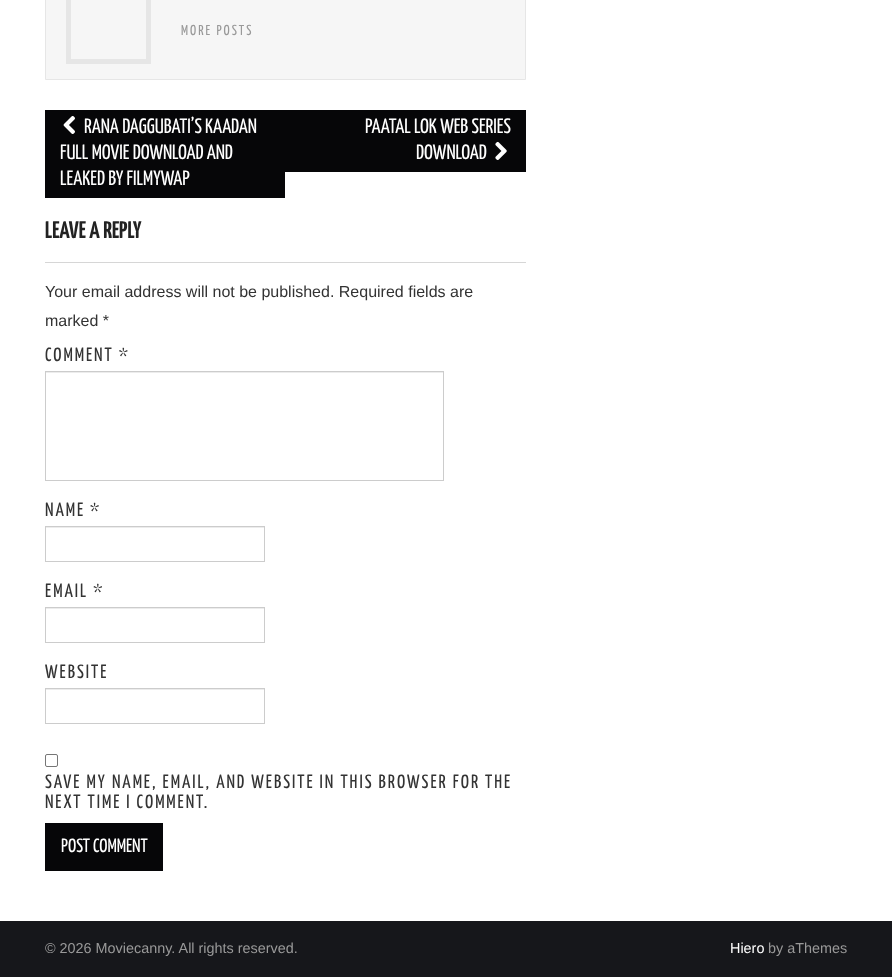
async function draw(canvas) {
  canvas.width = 892;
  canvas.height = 977;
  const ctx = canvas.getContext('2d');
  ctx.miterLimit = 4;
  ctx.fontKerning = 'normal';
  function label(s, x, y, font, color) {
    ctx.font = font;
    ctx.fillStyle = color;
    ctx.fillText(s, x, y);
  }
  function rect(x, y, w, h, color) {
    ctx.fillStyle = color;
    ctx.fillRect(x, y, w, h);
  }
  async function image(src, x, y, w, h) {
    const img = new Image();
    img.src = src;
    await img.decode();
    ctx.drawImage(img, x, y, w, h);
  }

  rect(0, 0, 892, 977, '#fff');
  ctx.fillStyle = '#f6f6f6';
  ctx.beginPath();
  ctx.rect(45.5, -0.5, 480, 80);
  ctx.fill();
  ctx.strokeStyle = '#e6e6e6';
  ctx.stroke();
  ctx.lineWidth = 5;
  ctx.strokeRect(68.5, -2.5, 80, 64);
  ctx.letterSpacing = '2px';
  label('MORE POSTS', 181, 35, '14.4px Yanone Kaffeesatz', '#999');
  rect(45, 110, 240, 88, '#060608');
  await image('assets/img1.png', 63, 116, 12, 18);
  ctx.letterSpacing = '0px';
  label('RANA DAGGUBATI’S KAADAN', 84, 133, '20.75px Yanone Kaffeesatz', '#fff');
  label('FULL MOVIE DOWNLOAD AND', 60, 159, '20.75px Yanone Kaffeesatz', '#fff');
  label('LEAKED BY FILMYWAP', 60, 185, '20.75px Yanone Kaffeesatz', '#fff');
  rect(285, 110, 241, 62, '#060608');
  label('PAATAL LOK WEB SERIES', 365, 133, '20.75px Yanone Kaffeesatz', '#fff');
  label('DOWNLOAD', 416, 159, '20.75px Yanone Kaffeesatz', '#fff');
  await image('assets/img2.png', 495, 141, 12, 19);
  rect(45, 262, 481, 1, '#d6d6d6');
  label('LEAVE A REPLY', 45, 238, 'bold 24px Yanone Kaffeesatz', '#222');
  label('Your email address will not be published. Required fields are', 45, 297, '16px Liberation Sans', '#333');
  label('marked *', 45, 326, '16px Liberation Sans', '#333');
  ctx.letterSpacing = '2px';
  label('COMMENT *', 45, 361, '19.2px Yanone Kaffeesatz', '#333');
  rect(46, 372, 397, 1, '#ececec');
  ctx.strokeStyle = '#ccc';
  ctx.lineWidth = 1;
  ctx.strokeRect(45.5, 371.5, 398, 109);
  label('NAME *', 45, 516, '19.2px Yanone Kaffeesatz', '#333');
  rect(46, 527, 218, 1, '#ececec');
  ctx.strokeRect(45.5, 526.5, 219, 35);
  label('EMAIL *', 45, 597, '19.2px Yanone Kaffeesatz', '#333');
  rect(46, 608, 218, 1, '#ececec');
  ctx.strokeRect(45.5, 607.5, 219, 35);
  label('WEBSITE', 45, 678, '19.2px Yanone Kaffeesatz', '#333');
  rect(46, 689, 218, 1, '#ececec');
  ctx.strokeRect(45.5, 688.5, 219, 35);
  ctx.beginPath();
  ctx.roundRect(45.5, 754.5, 12, 12, 1.5);
  ctx.strokeStyle = '#767676';
  ctx.stroke();
  label('SAVE MY NAME, EMAIL, AND WEBSITE IN THIS BROWSER FOR THE', 45, 788, '19.2px Yanone Kaffeesatz', '#333');
  label('NEXT TIME I COMMENT.', 45, 808, '19.2px Yanone Kaffeesatz', '#333');
  rect(45, 823, 118, 48, '#060608');
  ctx.letterSpacing = '0px';
  label('POST COMMENT', 61, 852, '19.2px Yanone Kaffeesatz', '#fff');
  rect(0, 921, 892, 56, '#16171b');
  label('© 2026 Moviecanny. All rights reserved.', 45, 953, '14.4px Liberation Sans', '#999');
  label('Hiero', 730, 953, '14.4px Liberation Sans', '#fff');
  label('by aThemes', 768, 953, '14.4px Liberation Sans', '#999');
}

draw(document.querySelector('canvas'));
